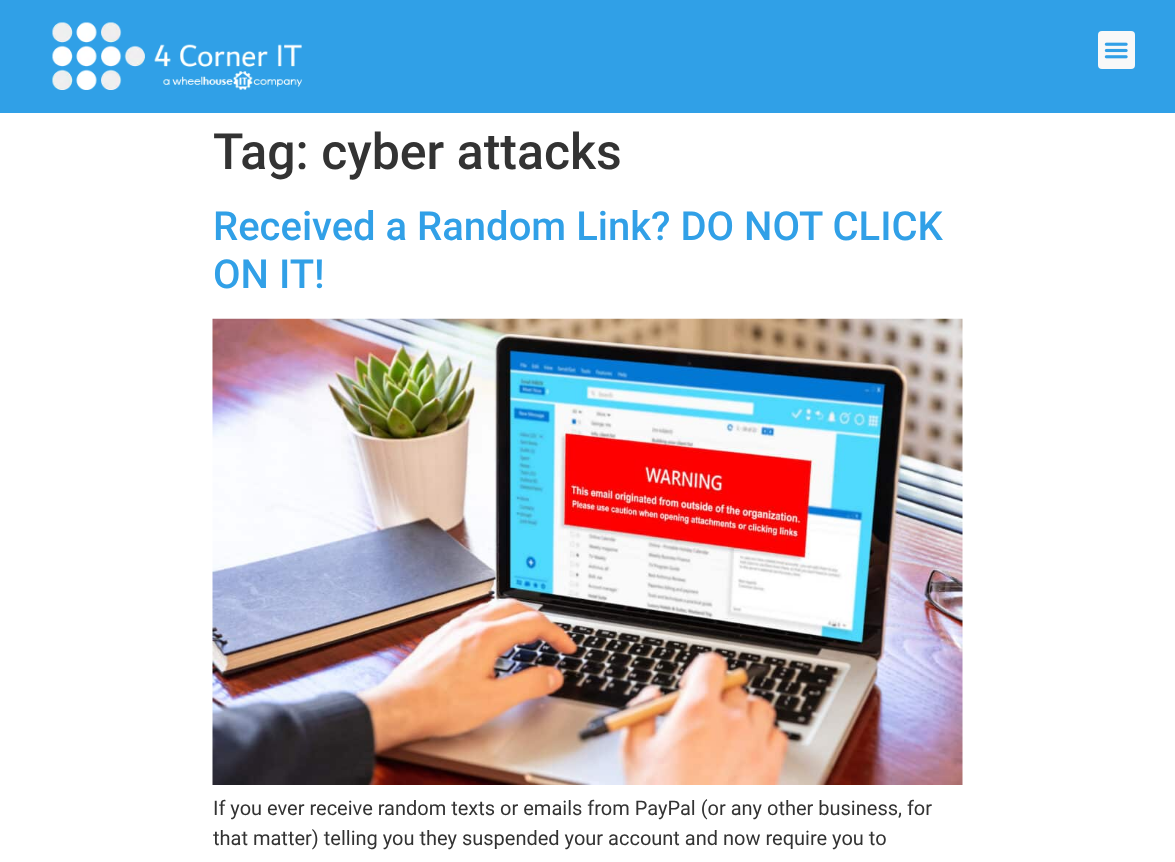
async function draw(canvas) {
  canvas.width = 1175;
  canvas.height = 862;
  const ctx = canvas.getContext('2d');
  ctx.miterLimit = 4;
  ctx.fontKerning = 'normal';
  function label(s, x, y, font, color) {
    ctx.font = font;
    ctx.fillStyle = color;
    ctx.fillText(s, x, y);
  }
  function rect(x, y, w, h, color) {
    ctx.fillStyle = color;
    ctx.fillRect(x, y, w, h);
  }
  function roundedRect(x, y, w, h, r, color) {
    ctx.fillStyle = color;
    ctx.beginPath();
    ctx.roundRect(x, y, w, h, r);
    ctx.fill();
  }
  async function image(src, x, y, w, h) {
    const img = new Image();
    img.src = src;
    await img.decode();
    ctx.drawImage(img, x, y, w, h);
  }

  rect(0, 0, 1175, 862, '#fff');
  rect(0, 0, 1175, 113, '#30a0e7');
  await image('assets/img1.png', 52, 22, 251, 68);
  roundedRect(1098, 31, 37, 38, 4, '#f8f8f8');
  await image('assets/img2.png', 1104, 42, 24, 17);
  label('Tag: cyber attacks', 213, 169, '500 50px Roboto', '#333');
  label('Received a Random Link? DO NOT CLICK', 213, 240, '500 40px Roboto', '#31a0e7');
  label('ON IT!', 213, 288, '500 40px Roboto', '#31a0e7');
  await image('assets/img3.png', 212, 318, 751, 467);
  label('If you ever receive random texts or emails from PayPal (or any other business, for', 213, 815, '20px Roboto', '#333');
  label('that matter) telling you they suspended your account and now require you to', 213, 845, '20px Roboto', '#333');
}

draw(document.querySelector('canvas'));
